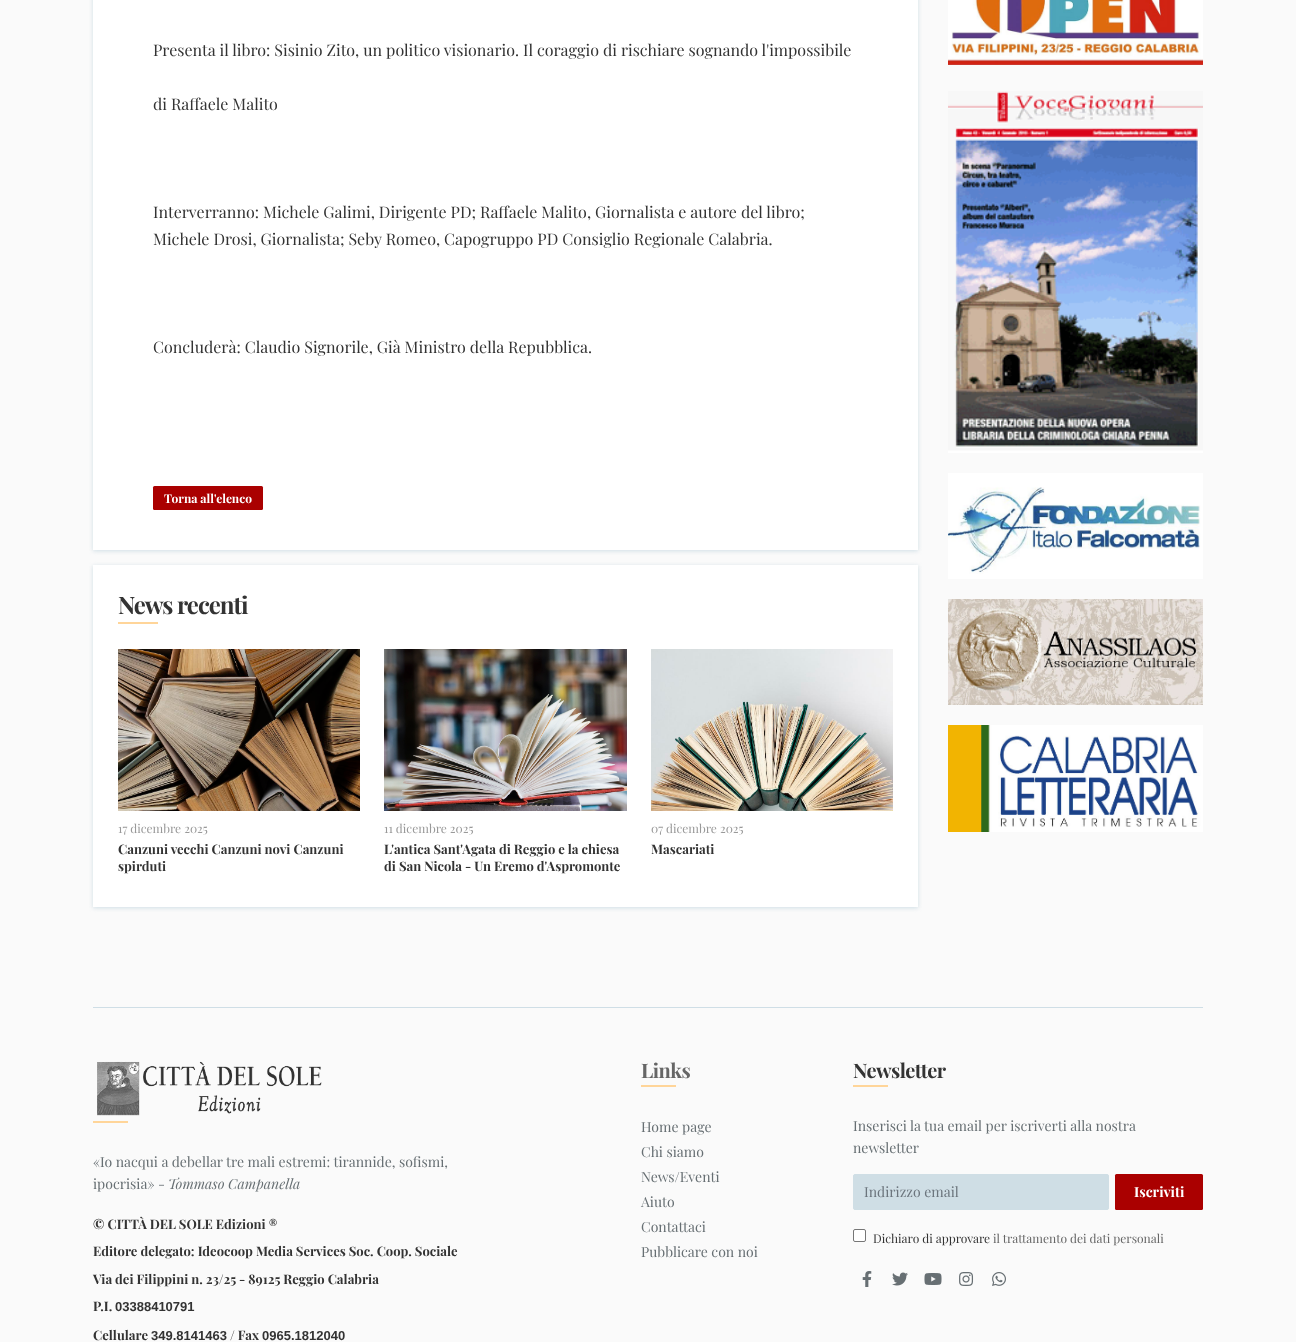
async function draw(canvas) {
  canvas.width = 1296;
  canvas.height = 1342;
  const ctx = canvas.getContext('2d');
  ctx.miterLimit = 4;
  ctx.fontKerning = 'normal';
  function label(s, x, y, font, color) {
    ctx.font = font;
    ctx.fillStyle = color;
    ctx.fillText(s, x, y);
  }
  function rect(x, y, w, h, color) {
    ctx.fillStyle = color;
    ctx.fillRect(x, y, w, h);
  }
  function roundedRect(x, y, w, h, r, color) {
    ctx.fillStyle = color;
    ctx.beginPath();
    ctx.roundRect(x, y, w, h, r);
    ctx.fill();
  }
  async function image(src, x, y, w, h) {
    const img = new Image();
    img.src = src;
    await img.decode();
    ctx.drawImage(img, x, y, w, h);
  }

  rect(0, 0, 1296, 1342, '#fafafa');
  ctx.fillStyle = '#cfdee5';
  ctx.filter = 'blur(2px)';
  ctx.beginPath();
  ctx.rect(93, -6, 825, 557);
  ctx.fill();
  ctx.filter = 'none';
  rect(93, 0, 825, 550, '#fff');
  label('Presenta il libro: Sisinio Zito, un politico visionario. Il coraggio di rischiare sognando l\'impossibile', 153, 56, '16px Playfair Display', '#333');
  label('di Raffaele Malito', 153, 110, '16px Playfair Display', '#333');
  label('Interverranno: Michele Galimi, Dirigente PD; Raffaele Malito, Giornalista e autore del libro;', 153, 218, '16px Playfair Display', '#333');
  label('Michele Drosi, Giornalista; Seby Romeo, Capogruppo PD Consiglio Regionale Calabria.', 153, 245, '16px Playfair Display', '#333');
  label('Concluderà: Claudio Signorile, Già Ministro della Repubblica.', 153, 353, '16px Playfair Display', '#333');
  roundedRect(153, 486, 110, 24, 1.5, '#a00');
  label('Torna all\'elenco', 164, 503, 'bold 12px Playfair Display', '#fff');
  ctx.fillStyle = '#cfdee5';
  ctx.filter = 'blur(2px)';
  ctx.beginPath();
  ctx.rect(93, 566, 825, 342);
  ctx.fill();
  ctx.filter = 'none';
  rect(93, 565, 825, 342, '#fff');
  ctx.letterSpacing = '-1px';
  label('News recenti', 118, 614, 'bold 24px Playfair Display', '#333');
  rect(118, 622, 40, 2, '#ffd599');
  await image('assets/img1.png', 118, 649, 242, 162);
  ctx.letterSpacing = '0px';
  label('17 dicembre 2025', 118, 833, '12px Playfair Display', '#999');
  label('Canzuni vecchi Canzuni novi Canzuni', 118, 854, 'bold 13px Playfair Display', '#333');
  label('spirduti', 118, 871, 'bold 13px Playfair Display', '#333');
  await image('assets/img2.png', 384, 649, 243, 162);
  label('11 dicembre 2025', 384, 833, '12px Playfair Display', '#999');
  label('L\'antica Sant\'Agata di Reggio e la chiesa', 384, 854, 'bold 13px Playfair Display', '#333');
  label('di San Nicola - Un Eremo d\'Aspromonte', 384, 871, 'bold 13px Playfair Display', '#333');
  await image('assets/img3.png', 651, 649, 242, 162);
  label('07 dicembre 2025', 651, 833, '12px Playfair Display', '#999');
  label('Mascariati', 651, 854, 'bold 13px Playfair Display', '#333');
  await image('assets/img4.png', 948, 0, 255, 65);
  await image('assets/img5.png', 948, 91, 255, 362);
  await image('assets/img6.png', 948, 473, 255, 106);
  await image('assets/img7.png', 948, 599, 255, 106);
  await image('assets/img8.png', 948, 725, 255, 107);
  rect(93, 1007, 1110, 1, '#cfdee6');
  await image('assets/img9.png', 97, 1061, 225, 55);
  rect(93, 1121, 35, 2, '#ffd599');
  label('«Io nacqui a debellar tre mali estremi: tirannide, sofismi,', 93, 1167, '14px Playfair Display', '#676f73');
  label('ipocrisia» -', 93, 1189, '14px Playfair Display', '#676f73');
  label('Tommaso Campanella', 168, 1189, 'italic 14px Playfair Display', '#676f73');
  label('© CITTÀ DEL SOLE Edizioni ®', 93, 1229, 'bold 13px Playfair Display', '#333');
  label('Editore delegato: Ideocoop Media Services Soc. Coop. Sociale', 93, 1256, 'bold 13px Playfair Display', '#333');
  label('Via dei Filippini n. 23/25 - 89125 Reggio Calabria', 93, 1284, 'bold 13px Playfair Display', '#333');
  label('P.I.', 93, 1311, 'bold 13px Playfair Display', '#333');
  label('03388410791', 115, 1311, 'bold 13px Liberation Sans', '#333');
  label('Cellulare', 93, 1340, 'bold 13px Playfair Display', '#333');
  label('349.8141463', 151, 1340, 'bold 13px Liberation Sans', '#333');
  label('/ Fax', 230, 1340, 'bold 13px Playfair Display', '#333');
  label('0965.1812040', 262, 1340, 'bold 13px Liberation Sans', '#333');
  ctx.letterSpacing = '-0.5px';
  label('Links', 641, 1078, 'bold 20px Playfair Display', '#666');
  rect(641, 1085, 35, 2, '#ffd599');
  ctx.letterSpacing = '0px';
  label('Home page', 641, 1132, '14px Playfair Display', '#676f73');
  label('Chi siamo', 641, 1157, '14px Playfair Display', '#676f73');
  label('News/Eventi', 641, 1182, '14px Playfair Display', '#676f73');
  label('Aiuto', 641, 1207, '14px Playfair Display', '#676f73');
  label('Contattaci', 641, 1232, '14px Playfair Display', '#676f73');
  label('Pubblicare con noi', 641, 1257, '14px Playfair Display', '#676f73');
  ctx.letterSpacing = '-0.5px';
  label('Newsletter', 853, 1078, 'bold 20px Playfair Display', '#333');
  rect(853, 1085, 35, 2, '#ffd599');
  ctx.letterSpacing = '0px';
  label('Inserisci la tua email per iscriverti alla nostra', 853, 1131, '14px Playfair Display', '#676f73');
  label('newsletter', 853, 1153, '14px Playfair Display', '#676f73');
  ctx.fillStyle = '#cfdee5';
  ctx.beginPath();
  ctx.roundRect(853.5, 1174.5, 255, 35, 1.5);
  ctx.fill();
  ctx.strokeStyle = '#cfdee5';
  ctx.stroke();
  label('Indirizzo email', 864, 1197, '14px Playfair Display', '#6c757d');
  roundedRect(1115, 1174, 88, 36, 1.5, '#a00');
  label('Iscriviti', 1134, 1197, 'bold 14px Playfair Display', '#fff');
  ctx.beginPath();
  ctx.roundRect(853.5, 1229.5, 12, 12, 1.5);
  ctx.fill();
  ctx.strokeStyle = '#767676';
  ctx.stroke();
  label('Dichiaro di approvare', 873, 1243, '12px Playfair Display', '#333');
  label('il trattamento dei dati personali', 993, 1243, '12px Playfair Display', '#666');
  await image('assets/img10.png', 862, 1271, 10, 16);
  await image('assets/img11.png', 892, 1272, 16, 14);
  await image('assets/img12.png', 924, 1273, 18, 12);
  await image('assets/img13.png', 959, 1272, 15, 14);
  await image('assets/img14.png', 992, 1272, 14, 14);
}

draw(document.querySelector('canvas'));
